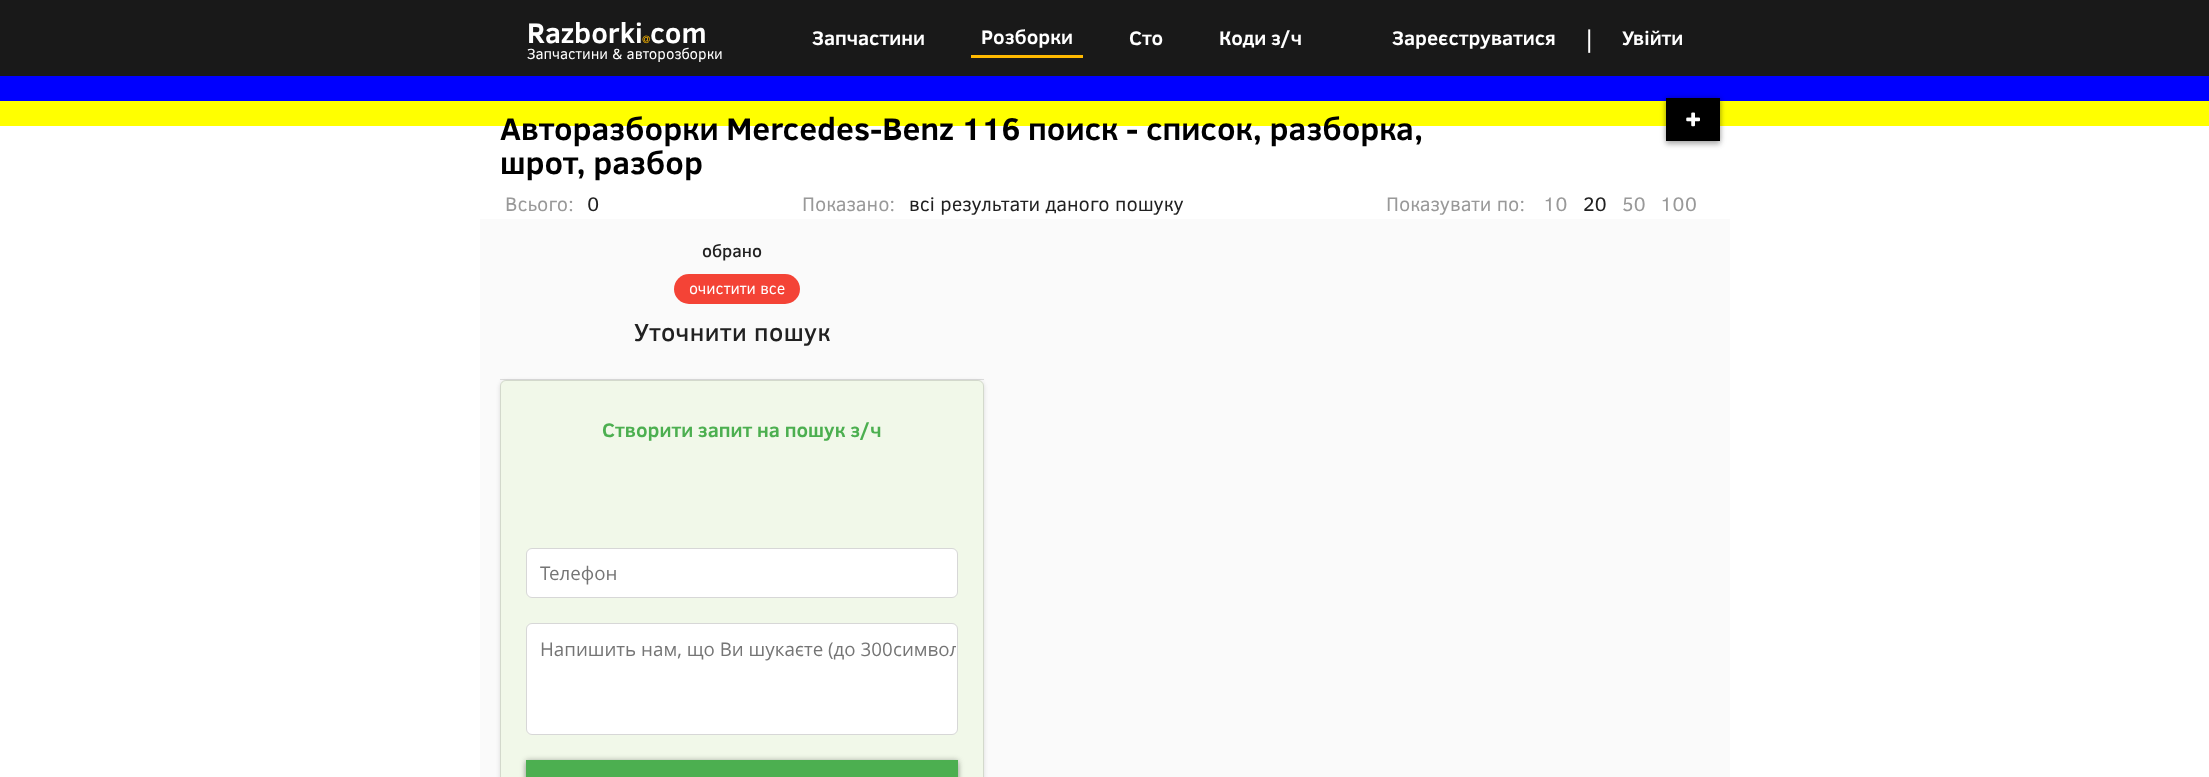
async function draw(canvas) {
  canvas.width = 2209;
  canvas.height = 777;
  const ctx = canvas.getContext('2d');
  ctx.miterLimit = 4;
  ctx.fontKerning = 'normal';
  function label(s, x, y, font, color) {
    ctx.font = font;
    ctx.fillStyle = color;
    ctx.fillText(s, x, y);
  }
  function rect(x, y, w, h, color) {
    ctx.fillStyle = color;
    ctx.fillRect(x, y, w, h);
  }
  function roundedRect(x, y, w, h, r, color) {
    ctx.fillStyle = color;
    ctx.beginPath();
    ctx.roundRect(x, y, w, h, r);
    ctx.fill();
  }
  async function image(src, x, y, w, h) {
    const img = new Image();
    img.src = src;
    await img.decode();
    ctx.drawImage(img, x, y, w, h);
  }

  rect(0, 0, 2209, 777, '#fff');
  rect(0, 0, 2209, 76, '#191919');
  label('Razborki', 527, 43, 'bold 28.75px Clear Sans', '#fff');
  await image('assets/img1.png', 642, 35, 8, 9);
  label('com', 650, 43, 'bold 28.75px Clear Sans', '#fff');
  label('Запчастини & авторозборки', 527, 59, '15px Clear Sans', '#fff');
  label('Запчастини', 812, 45, 'bold 20px Clear Sans', '#fff');
  rect(971, 55, 112, 3, '#ffb900');
  label('Розборки', 981, 44, 'bold 20px Clear Sans', '#fff');
  label('Сто', 1129, 45, 'bold 20px Clear Sans', '#fff');
  label('Коди з/ч', 1219, 45, 'bold 20px Clear Sans', '#fff');
  label('Зареєструватися', 1392, 45, 'bold 20px Clear Sans', '#fff');
  label('|', 1584, 48, '25px Clear Sans', '#fff');
  label('Увійти', 1622, 45, 'bold 20px Clear Sans', '#fff');
  rect(0, 76, 2209, 25, '#00f');
  rect(0, 101, 2209, 25, '#ff0');
  label('Авторазборки Mercedes-Benz 116 поиск - список, разборка,', 500, 140, 'bold 32px Clear Sans', '#000');
  label('шрот, разбор', 500, 174, 'bold 32px Clear Sans', '#000');
  ctx.fillStyle = '#00000033';
  ctx.filter = 'blur(3px)';
  ctx.beginPath();
  ctx.rect(1666, 99, 54, 44);
  ctx.fill();
  ctx.filter = 'none';
  ctx.fillStyle = '#0000001f';
  ctx.filter = 'blur(2.5px)';
  ctx.beginPath();
  ctx.rect(1666, 101, 54, 44);
  ctx.fill();
  ctx.filter = 'none';
  ctx.fillStyle = '#00000024';
  ctx.filter = 'blur(2.5px)';
  ctx.beginPath();
  ctx.rect(1666, 98, 54, 43);
  ctx.fill();
  ctx.filter = 'none';
  rect(1666, 98, 54, 43, '#000');
  await image('assets/img2.png', 1686, 112, 14, 15);
  label('Всього:', 505, 211, '20px Clear Sans', '#999');
  label('0', 587, 211, '20px Clear Sans', '#212121');
  label('Показано:', 802, 211, '20px Clear Sans', '#999');
  label('всі результати даного пошуку', 909, 211, '20px Clear Sans', '#212121');
  label('Показувати по:', 1386, 211, '20px Clear Sans', '#999');
  label('10', 1543, 211, '20px Clear Sans', '#999');
  label('20', 1583, 211, '20px Clear Sans', '#212121');
  label('50', 1622, 211, '20px Clear Sans', '#999');
  label('100', 1660, 211, '20px Clear Sans', '#999');
  rect(480, 219, 1250, 558, '#fafafa');
  rect(500, 379, 484, 1, '#dcdcdc');
  label('обрано', 702, 257, '500 17.5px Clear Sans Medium', '#212121');
  roundedRect(674, 274, 126, 30, 15, '#f44336');
  label('очистити все', 689, 294, '16px Clear Sans', '#fff');
  ctx.letterSpacing = '0.5px';
  label('Уточнити пошук', 634, 341, '500 25px Clear Sans Medium', '#212121');
  ctx.fillStyle = '#0000001f';
  ctx.filter = 'blur(2px)';
  ctx.beginPath();
  ctx.roundRect(500, 381, 484, 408, 6);
  ctx.fill();
  ctx.filter = 'none';
  roundedRect(500, 380, 484, 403, 6, '#f1f8e9');
  ctx.beginPath();
  ctx.roundRect(500.5, 380.5, 483, 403, 5.5);
  ctx.strokeStyle = '#0000001f';
  ctx.stroke();
  ctx.letterSpacing = '0px';
  label('Створити запит на пошук з/ч', 602, 437, 'bold 20px Clear Sans', '#4caf50');
  ctx.fillStyle = '#fff';
  ctx.beginPath();
  ctx.roundRect(526.5, 548.5, 431, 49, 5.5);
  ctx.fill();
  ctx.strokeStyle = '#d7d7d7';
  ctx.stroke();
  label('Телефон', 540, 580, '18.75px Open Sans', '#757575');
  ctx.fillStyle = '#fff';
  ctx.beginPath();
  ctx.roundRect(526.5, 623.5, 431, 111, 5.5);
  ctx.fill();
  ctx.stroke();
  label('Напишить нам, що Ви шукаєте (до 300', 540, 656, '18.75px Open Sans', '#757575');
  ctx.save();
  ctx.beginPath();
  ctx.roundRect(528, 624, 428, 110, 5);
  ctx.clip();
  label('символ', 893, 656, '18.75px Open Sans', '#757575');
  ctx.restore();
  ctx.fillStyle = '#00000033';
  ctx.filter = 'blur(3px)';
  ctx.beginPath();
  ctx.rect(526, 761, 432, 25);
  ctx.fill();
  ctx.filter = 'none';
  ctx.fillStyle = '#0000001f';
  ctx.filter = 'blur(2.5px)';
  ctx.beginPath();
  ctx.rect(526, 764, 432, 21);
  ctx.fill();
  ctx.filter = 'none';
  ctx.fillStyle = '#00000024';
  ctx.filter = 'blur(2.5px)';
  ctx.beginPath();
  ctx.rect(526, 760, 432, 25);
  ctx.fill();
  ctx.filter = 'none';
  rect(526, 760, 432, 17, '#4caf50');
}

draw(document.querySelector('canvas'));
